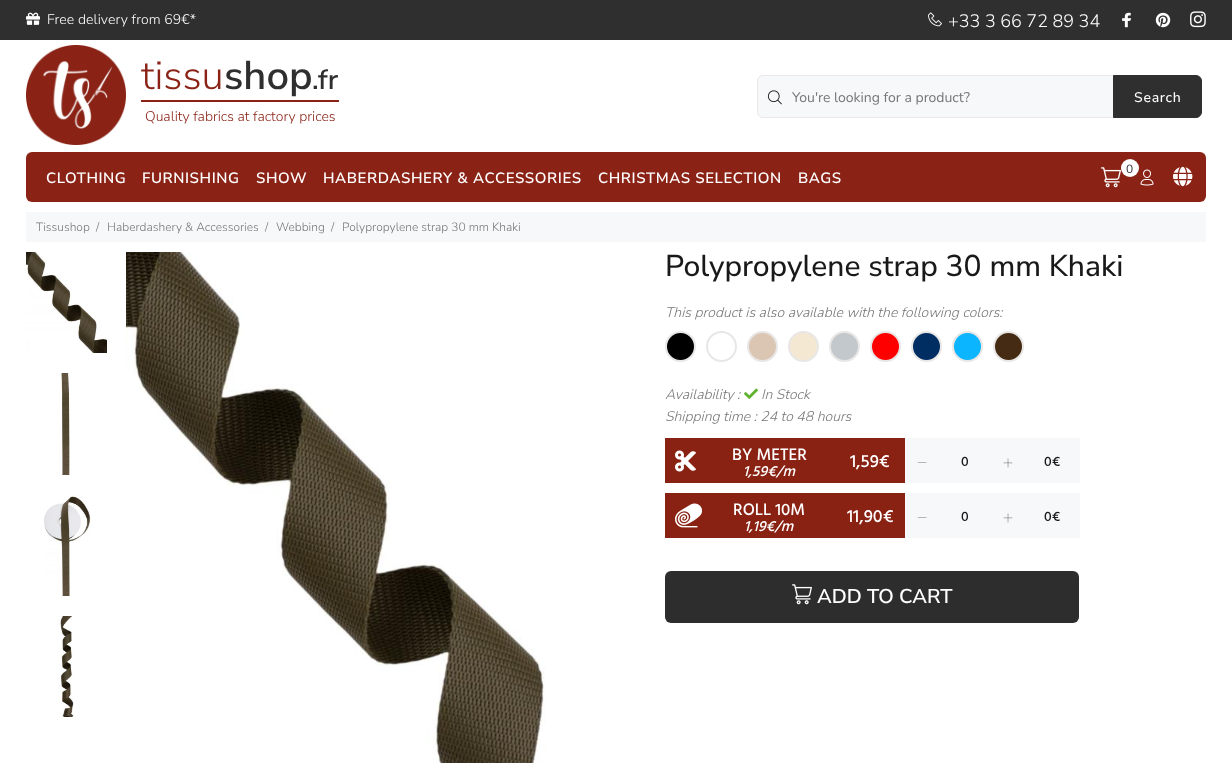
async function draw(canvas) {
  canvas.width = 1232;
  canvas.height = 763;
  const ctx = canvas.getContext('2d');
  ctx.miterLimit = 4;
  ctx.fontKerning = 'normal';
  function label(s, x, y, font, color) {
    ctx.font = font;
    ctx.fillStyle = color;
    ctx.fillText(s, x, y);
  }
  function rect(x, y, w, h, color) {
    ctx.fillStyle = color;
    ctx.fillRect(x, y, w, h);
  }
  function roundedRect(x, y, w, h, r, color) {
    ctx.fillStyle = color;
    ctx.beginPath();
    ctx.roundRect(x, y, w, h, r);
    ctx.fill();
  }
  async function image(src, x, y, w, h) {
    const img = new Image();
    img.src = src;
    await img.decode();
    ctx.drawImage(img, x, y, w, h);
  }
  let path;

  rect(0, 0, 1232, 763, '#fff');
  rect(0, 0, 1232, 40, '#302f2f');
  await image('assets/img1.png', 26, 12, 14, 13);
  ctx.letterSpacing = '0.1px';
  label('Free delivery from 69€*', 47, 24, '300 14px Nunito Sans', '#fff');
  await image('assets/img2.png', 928, 12, 14, 15);
  ctx.letterSpacing = '0px';
  label('+33 3 66 72 89 34', 948, 27, '300 18px Nunito Sans', '#fff');
  await image('assets/img3.png', 1122, 12, 10, 16);
  await image('assets/img4.png', 1155, 12, 16, 16);
  await image('assets/img5.png', 1190, 11, 16, 17);
  await image('assets/img6.png', 26, 45, 100, 100);
  label('tissu', 141, 89, '300 40px Nunito Sans', '#8a2316');
  label('shop', 224, 89, '600 40px Nunito Sans', '#302f2f');
  label('.fr', 312, 89, '600 28px Nunito Sans', '#302f2f');
  rect(141, 100, 198, 2, '#8a2316');
  label('Quality fabrics at factory prices', 145, 121, '300 14px Nunito Sans', '#8a2316');
  ctx.fillStyle = '#f7f8fa';
  ctx.beginPath();
  ctx.roundRect(757.5, 75.5, 359, 42, [5.5, 0, 0, 5.5]);
  ctx.fill();
  ctx.strokeStyle = '#e9e7e7';
  ctx.stroke();
  await image('assets/img7.png', 767, 90, 15, 15);
  label('You\'re looking for a product?', 792, 102, '14px Nunito Sans', '#777');
  ctx.fillStyle = '#302f2f';
  ctx.beginPath();
  ctx.roundRect(1113.5, 75.5, 88, 42, [0, 5.5, 5.5, 0]);
  ctx.fill();
  ctx.strokeStyle = '#302f2f';
  ctx.stroke();
  ctx.letterSpacing = '0.75px';
  label('Search', 1134, 102, '500 14px Nunito Sans', '#fff');
  roundedRect(26, 152, 1180, 50, 6, '#8a2316');
  await image('assets/img8.png', 1101, 167, 20, 21);
  ctx.fillStyle = '#fff';
  ctx.beginPath();
  ctx.arc(1130, 168, 9, 0, 2 * Math.PI);
  ctx.fill();
  ctx.letterSpacing = '0px';
  label('0', 1126, 173, '12px Nunito Sans', '#302f2f');
  await image('assets/img9.png', 1140, 169, 14, 17);
  await image('assets/img10.png', 1173, 166, 20, 21);
  ctx.letterSpacing = '0.6px';
  label('CLOTHING', 46, 183, '600 15px Nunito Sans', '#fff');
  label('FURNISHING', 142, 183, '600 15px Nunito Sans', '#fff');
  label('SHOW', 256, 183, '600 15px Nunito Sans', '#fff');
  label('HABERDASHERY & ACCESSORIES', 323, 183, '600 15px Nunito Sans', '#fff');
  label('CHRISTMAS SELECTION', 598, 183, '600 15px Nunito Sans', '#fff');
  label('BAGS', 798, 183, '600 15px Nunito Sans', '#fff');
  rect(26, 212, 1180, 30, '#f7f8fa');
  ctx.letterSpacing = '0px';
  label('Tissushop', 36, 231, '300 12px Nunito Sans', '#777');
  label('/', 96, 231, '300 12px Nunito Sans', '#777');
  label('Haberdashery & Accessories', 107, 231, '300 12px Nunito Sans', '#777');
  label('/', 265, 231, '300 12px Nunito Sans', '#777');
  label('Webbing', 276, 231, '300 12px Nunito Sans', '#777');
  label('/', 331, 231, '300 12px Nunito Sans', '#777');
  label('Polypropylene strap 30 mm Khaki', 342, 231, '300 12px Nunito Sans', '#777');
  await image('assets/img11.png', 26, 252, 81, 101);
  await image('assets/img12.png', 59, 373, 11, 102);
  await image('assets/img13.png', 44, 495, 47, 101);
  await image('assets/img14.png', 58, 616, 16, 101);
  await image('assets/img15.png', 126, 252, 420, 511);
  label('Polypropylene strap 30 mm Khaki', 665, 276, '500 30px Nunito Sans', '#191919');
  label('This product is also available with the following colors:', 665, 317, 'italic 300 14px Nunito Sans', '#777');
  ctx.fillStyle = '#000';
  ctx.beginPath();
  ctx.arc(680.5, 346.5, 14.5, 0, 2 * Math.PI);
  ctx.fill();
  ctx.strokeStyle = '#e9e7e6';
  ctx.lineWidth = 2;
  ctx.stroke();
  ctx.beginPath();
  ctx.arc(721.5, 346.5, 14.5, 0, 2 * Math.PI);
  ctx.stroke();
  ctx.fillStyle = '#dac6b3';
  ctx.beginPath();
  ctx.arc(762.5, 346.5, 14.5, 0, 2 * Math.PI);
  ctx.fill();
  ctx.stroke();
  ctx.fillStyle = '#f4e8d3';
  ctx.beginPath();
  ctx.arc(803.5, 346.5, 14.5, 0, 2 * Math.PI);
  ctx.fill();
  ctx.stroke();
  ctx.fillStyle = '#c3c8cd';
  ctx.beginPath();
  ctx.arc(844.5, 346.5, 14.5, 0, 2 * Math.PI);
  ctx.fill();
  ctx.stroke();
  ctx.fillStyle = '#f00';
  ctx.beginPath();
  ctx.arc(885.5, 346.5, 14.5, 0, 2 * Math.PI);
  ctx.fill();
  ctx.stroke();
  ctx.fillStyle = '#002d62';
  ctx.beginPath();
  ctx.arc(926.5, 346.5, 14.5, 0, 2 * Math.PI);
  ctx.fill();
  ctx.stroke();
  ctx.fillStyle = '#0bb5ff';
  ctx.beginPath();
  ctx.arc(967.5, 346.5, 14.5, 0, 2 * Math.PI);
  ctx.fill();
  ctx.stroke();
  ctx.fillStyle = '#462b14';
  ctx.beginPath();
  ctx.arc(1008.5, 346.5, 14.5, 0, 2 * Math.PI);
  ctx.fill();
  ctx.stroke();
  label('Availability :', 665, 399, 'italic 300 14px Nunito Sans', '#777');
  await image('assets/img16.png', 744, 388, 14, 11);
  label('In Stock', 761, 399, 'italic 300 14px Nunito Sans', '#777');
  label('Shipping time : 24 to 48 hours', 665, 421, 'italic 300 14px Nunito Sans', '#777');
  rect(665, 438, 240, 45, '#892213');
  await image('assets/img17.png', 675, 450, 21, 22);
  label('BY METER', 732, 460, '500 17px Hind', '#fff');
  label('1,59€/m', 743, 476, 'italic 500 15px Hind', '#fff');
  label('1,59€', 850, 467, '500 18px Hind', '#fff');
  rect(905, 438, 175, 45, '#f7f8fa');
  ctx.fillStyle = '#777';
  path = new Path2D('M926.5 462.5V463H917.5L918 462.5Z');
  ctx.fill(path);
  label('0', 961, 466, '500 14px Hind', '#191919');
  await image('assets/img18.png', 1003, 458, 10, 10);
  label('0€', 1044, 466, '500 14px Hind', '#191919');
  rect(665, 493, 240, 45, '#892213');
  await image('assets/img19.png', 675, 503, 27, 25);
  label('ROLL 10M', 733, 515, '500 17px Hind', '#fff');
  label('1,19€/m', 744, 531, 'italic 500 15px Hind', '#fff');
  label('11,90€', 847, 522, '500 18px Hind', '#fff');
  rect(905, 493, 175, 45, '#f7f8fa');
  ctx.fillStyle = '#777';
  path = new Path2D('M926.5 517.5V518H917.5L918 517.5Z');
  ctx.fill(path);
  label('0', 961, 521, '500 14px Hind', '#191919');
  await image('assets/img18.png', 1003, 513, 10, 10);
  label('0€', 1044, 521, '500 14px Hind', '#191919');
  roundedRect(665, 571, 414, 52, 6, '#2d2d2d');
  await image('assets/img20.png', 792, 584, 20, 21);
  label('ADD TO CART', 817, 603, '600 20px Nunito Sans', '#fff');
}

draw(document.querySelector('canvas'));
